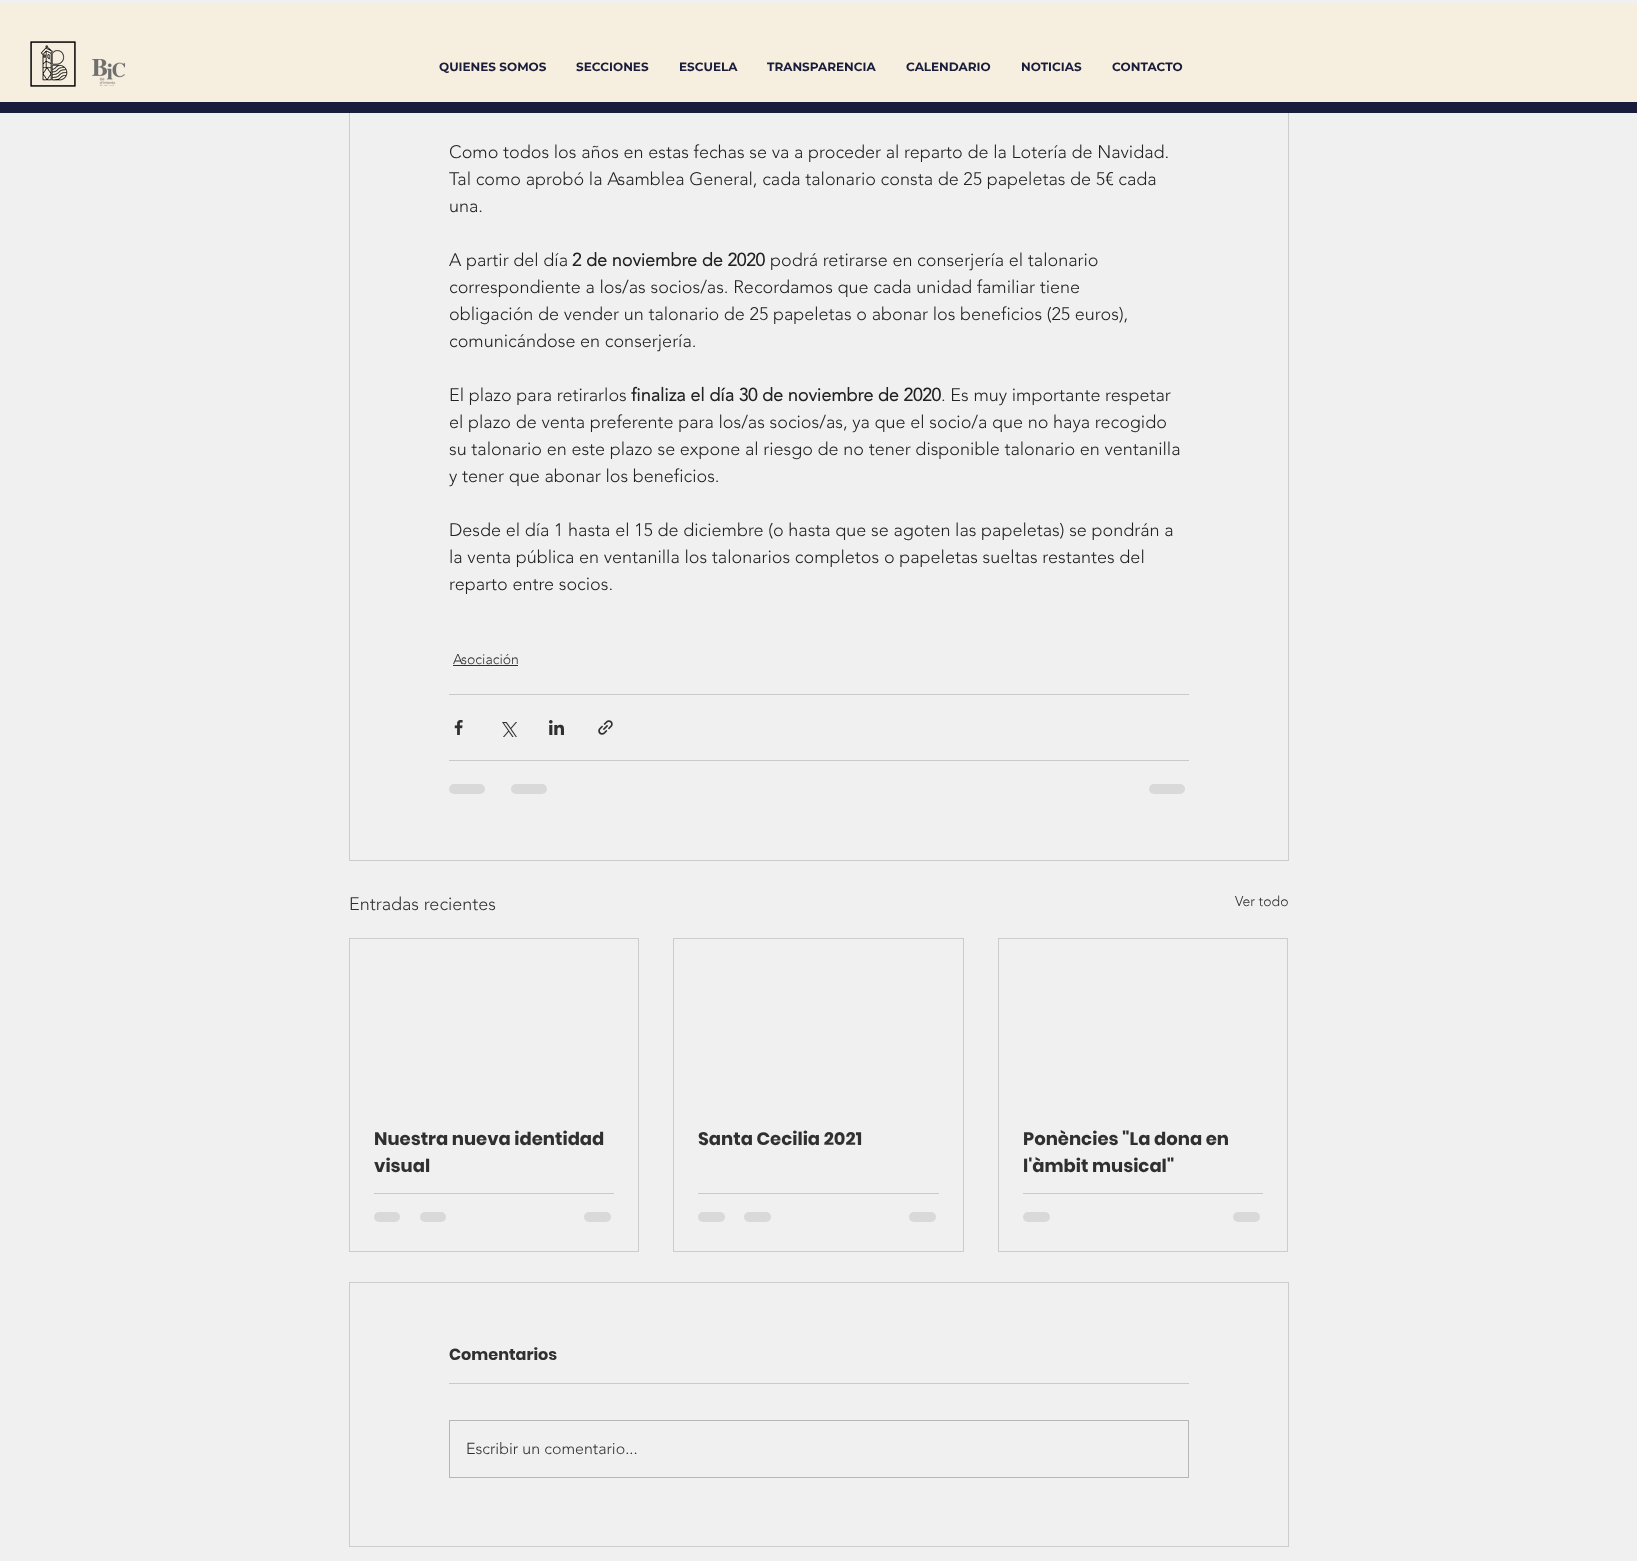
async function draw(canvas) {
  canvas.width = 1637;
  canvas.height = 1561;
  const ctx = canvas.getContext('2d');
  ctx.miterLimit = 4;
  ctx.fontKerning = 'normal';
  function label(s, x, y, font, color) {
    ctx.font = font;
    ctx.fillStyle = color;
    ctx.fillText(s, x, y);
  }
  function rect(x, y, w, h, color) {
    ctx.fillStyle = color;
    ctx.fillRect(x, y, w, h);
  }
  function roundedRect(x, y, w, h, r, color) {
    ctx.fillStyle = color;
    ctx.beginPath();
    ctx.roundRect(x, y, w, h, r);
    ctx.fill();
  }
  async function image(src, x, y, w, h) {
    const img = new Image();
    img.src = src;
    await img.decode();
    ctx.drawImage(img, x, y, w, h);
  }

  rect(0, 0, 1637, 1561, '#f0f0f0');
  ctx.strokeStyle = '#ccc';
  ctx.strokeRect(349.5, -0.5, 939, 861);
  rect(349, 0, 940, 3, '#f0f0f0');
  rect(0, 3, 1637, 99, '#f6eedf');
  await image('assets/img1.png', 30, 41, 46, 46);
  await image('assets/img2.png', 92, 59, 33, 27);
  label('QUIENES SOMOS', 439, 71, 'bold 12px Montserrat', '#191c3a');
  label('SECCIONES', 576, 71, 'bold 12px Montserrat', '#191c3a');
  label('ESCUELA', 679, 71, 'bold 12px Montserrat', '#191c3a');
  label('TRANSPARENCIA', 767, 71, 'bold 12px Montserrat', '#191c3a');
  label('CALENDARIO', 906, 71, 'bold 12px Montserrat', '#191c3a');
  label('NOTICIAS', 1021, 71, 'bold 12px Montserrat', '#191c3a');
  label('CONTACTO', 1112, 71, 'bold 12px Montserrat', '#191c3a');
  rect(0, 102, 1637, 11, '#191c3a');
  label('Como todos los años en estas fechas se va a proceder al reparto de la Lotería de Navidad.', 449, 158, '300 18px "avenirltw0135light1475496"', '#222');
  label('Tal como aprobó la Asamblea General, cada talonario consta de 25 papeletas de 5€ cada', 449, 185, '300 18px "avenirltw0135light1475496"', '#222');
  label('una.', 449, 212, '300 18px "avenirltw0135light1475496"', '#222');
  label('A partir del día', 449, 266, '300 18px "avenirltw0135light1475496"', '#222');
  label('2 de noviembre de 2020', 572, 266, 'bold 18px "avenirltw0135light1475496"', '#222');
  label('podrá retirarse en conserjería el talonario', 770, 266, '300 18px "avenirltw0135light1475496"', '#222');
  label('correspondiente a los/as socios/as. Recordamos que cada unidad familiar tiene', 449, 293, '300 18px "avenirltw0135light1475496"', '#222');
  label('obligación de vender un talonario de 25 papeletas o abonar los beneficios (25 euros),', 449, 320, '300 18px "avenirltw0135light1475496"', '#222');
  label('comunicándose en conserjería.', 449, 347, '300 18px "avenirltw0135light1475496"', '#222');
  label('El plazo para retirarlos', 449, 401, '300 18px "avenirltw0135light1475496"', '#222');
  label('finaliza el día 30 de noviembre de 2020', 631, 401, 'bold 18px "avenirltw0135light1475496"', '#222');
  label('. Es muy importante respetar', 941, 401, '300 18px "avenirltw0135light1475496"', '#222');
  label('el plazo de venta preferente para los/as socios/as, ya que el socio/a que no haya recogido', 449, 428, '300 18px "avenirltw0135light1475496"', '#222');
  label('su talonario en este plazo se expone al riesgo de no tener disponible talonario en ventanilla', 449, 455, '300 18px "avenirltw0135light1475496"', '#222');
  label('y tener que abonar los beneficios.', 449, 482, '300 18px "avenirltw0135light1475496"', '#222');
  label('Desde el día 1 hasta el 15 de diciembre (o hasta que se agoten las papeletas) se pondrán a', 449, 536, '300 18px "avenirltw0135light1475496"', '#222');
  label('la venta pública en ventanilla los talonarios completos o papeletas sueltas restantes del', 449, 563, '300 18px "avenirltw0135light1475496"', '#222');
  label('reparto entre socios.', 449, 590, '300 18px "avenirltw0135light1475496"', '#222');
  label('Asociación', 453, 664, '300 14px "avenirltw0135light1475496"', '#303030');
  rect(453, 665, 65, 1, '#303030');
  rect(449, 694, 740, 1, '#cacaca');
  await image('assets/img3.png', 454, 720, 9, 15);
  await image('assets/img4.png', 502, 722, 15, 15);
  await image('assets/img5.png', 549, 720, 15, 15);
  await image('assets/img6.png', 598, 720, 15, 15);
  rect(449, 760, 740, 1, '#cacaca');
  roundedRect(449, 784, 36, 10, 5, '#d9d9d9');
  roundedRect(511, 784, 36, 10, 5, '#d9d9d9');
  roundedRect(1149, 784, 36, 10, 5, '#d9d9d9');
  label('Entradas recientes', 349, 910, '300 18px "avenirltw0135light1475496"', '#303030');
  label('Ver todo', 1235, 906, '300 14px "avenirltw0135light1475496"', '#303030');
  ctx.strokeRect(349.5, 938.5, 289, 313);
  label('Nuestra nueva identidad', 374, 1145, 'bold 18px Poppins', '#303030');
  label('visual', 374, 1172, 'bold 18px Poppins', '#303030');
  rect(374, 1193, 240, 1, '#cacaca');
  roundedRect(374, 1212, 26, 10, 5, '#d9d9d9');
  roundedRect(420, 1212, 26, 10, 5, '#d9d9d9');
  roundedRect(584, 1212, 27, 10, 5, '#d9d9d9');
  ctx.strokeRect(673.5, 938.5, 290, 313);
  label('Santa Cecilia 2021', 698, 1145, 'bold 18px Poppins', '#303030');
  rect(698, 1193, 241, 1, '#cacaca');
  roundedRect(698, 1212, 27, 10, 5, '#d9d9d9');
  roundedRect(744, 1212, 27, 10, 5, '#d9d9d9');
  roundedRect(909, 1212, 27, 10, 5, '#d9d9d9');
  ctx.strokeRect(998.5, 938.5, 289, 313);
  label('Ponències "La dona en', 1023, 1145, 'bold 18px Poppins', '#303030');
  label('l\'àmbit musical"', 1023, 1172, 'bold 18px Poppins', '#303030');
  rect(1023, 1193, 240, 1, '#cacaca');
  roundedRect(1023, 1212, 27, 10, 5, '#d9d9d9');
  roundedRect(1233, 1212, 27, 10, 5, '#d9d9d9');
  ctx.strokeRect(349.5, 1282.5, 939, 264);
  label('Comentarios', 449, 1360, 'bold 16px Poppins', '#303030');
  rect(449, 1383, 740, 1, '#cacaca');
  ctx.strokeStyle = '#b6b6b6';
  ctx.strokeRect(449.5, 1420.5, 739, 57);
  label('Escribir un comentario...', 466, 1454, '300 16px "avenirltw0135light1475496"', '#303030');
}

draw(document.querySelector('canvas'));
